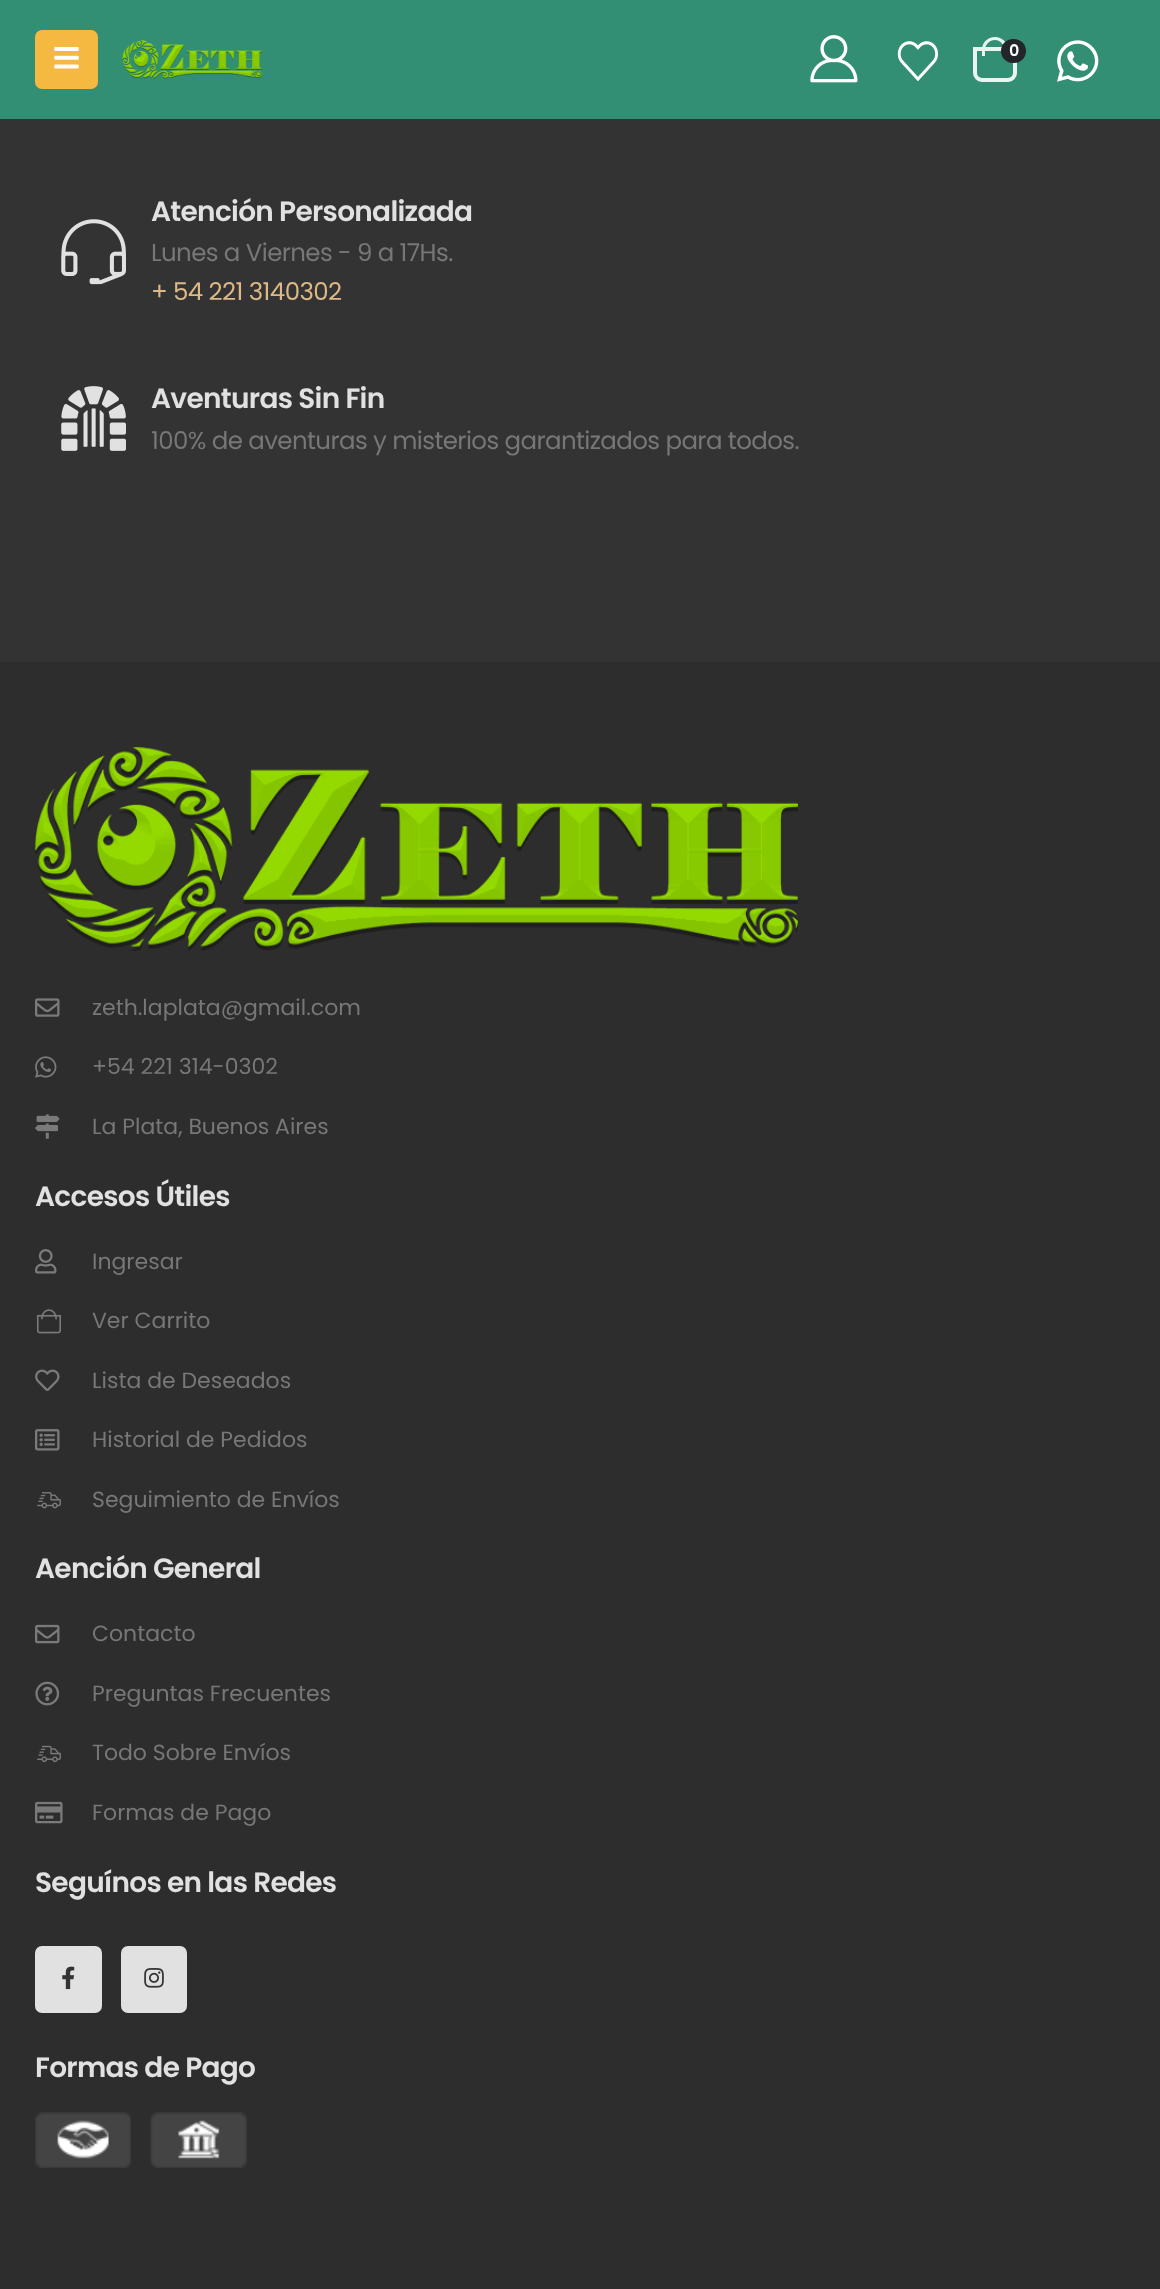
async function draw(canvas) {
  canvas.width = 1160;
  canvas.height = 2289;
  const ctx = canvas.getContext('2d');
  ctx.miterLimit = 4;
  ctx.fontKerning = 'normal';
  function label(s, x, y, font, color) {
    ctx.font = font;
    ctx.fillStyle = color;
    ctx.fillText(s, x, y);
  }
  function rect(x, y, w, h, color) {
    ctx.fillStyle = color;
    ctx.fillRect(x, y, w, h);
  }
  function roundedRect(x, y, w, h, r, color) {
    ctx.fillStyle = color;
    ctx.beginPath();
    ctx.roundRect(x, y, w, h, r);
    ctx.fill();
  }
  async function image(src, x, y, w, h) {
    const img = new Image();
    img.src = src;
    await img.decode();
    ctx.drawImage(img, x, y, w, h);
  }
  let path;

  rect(0, 0, 1160, 2289, '#333');
  rect(0, 0, 1160, 119, '#328f74');
  roundedRect(35, 30, 63, 59, 7, '#f5b841');
  await image('assets/img1.png', 54, 47, 25, 22);
  await image('assets/img2.png', 122, 40, 141, 39);
  await image('assets/img3.png', 810, 35, 48, 48);
  await image('assets/img4.png', 897, 41, 41, 41);
  ctx.beginPath();
  ctx.roundRect(975, 49, 40, 31, [0, 0, 7, 7]);
  ctx.strokeStyle = '#ebf4f1';
  ctx.lineWidth = 4;
  ctx.stroke();
  ctx.fillStyle = '#ebf4f1';
  path = new Path2D('M995 37C1002 37 1008 42.5 1008 50V56H982V50C982 42.5 987.5 37 995 37ZM995 40C1000 40 1004.5 44.5 1004.5 50V56H985V50C985 44.5 989.5 40 995 40Z');
  ctx.fill(path, 'evenodd');
  roundedRect(1001, 39, 25, 24, 12, '#222529');
  label('0', 1009, 56, '600 16px Poppins', '#fff');
  await image('assets/img5.png', 1057, 40, 42, 42);
  await image('assets/img6.png', 61, 219, 65, 66);
  ctx.letterSpacing = '-0.7px';
  label('Atención Personalizada', 151, 221, '600 28px Poppins', '#e1e1e1');
  ctx.letterSpacing = '-0.6px';
  label('Lunes a Viernes - 9 a 17Hs.', 151, 261, '24.5px Poppins', '#777');
  label('+ 54 221 3140302', 151, 300, '24.5px Poppins', '#deb887');
  await image('assets/img7.png', 61, 386, 65, 65);
  ctx.letterSpacing = '-0.7px';
  label('Aventuras Sin Fin', 151, 408, '600 28px Poppins', '#e1e1e1');
  ctx.letterSpacing = '-0.6px';
  label('100% de aventuras y misterios garantizados para todos.', 151, 449, '24.5px Poppins', '#777');
  rect(0, 662, 1160, 1627, '#2d2d2d');
  await image('assets/img8.png', 35, 747, 763, 204);
  await image('assets/img9.png', 35, 998, 25, 19);
  ctx.letterSpacing = '0px';
  label('zeth.laplata@gmail.com', 92, 1015, '22px Poppins', '#777');
  await image('assets/img10.png', 35, 1056, 22, 22);
  label('+54 221 314-0302', 92, 1074, '22px Poppins', '#777');
  await image('assets/img11.png', 35, 1114, 25, 25);
  label('La Plata, Buenos Aires', 92, 1134, '22px Poppins', '#777');
  ctx.letterSpacing = '-0.7px';
  label('Accesos Útiles', 35, 1206, '600 28px Poppins', '#e1e1e1');
  await image('assets/img12.png', 35, 1249, 22, 25);
  ctx.letterSpacing = '0px';
  label('Ingresar', 92, 1269, '22px Poppins', '#777');
  await image('assets/img13.png', 36, 1309, 25, 25);
  label('Ver Carrito', 92, 1328, '22px Poppins', '#777');
  await image('assets/img14.png', 35, 1369, 25, 22);
  label('Lista de Deseados', 92, 1388, '22px Poppins', '#777');
  await image('assets/img15.png', 35, 1429, 25, 22);
  label('Historial de Pedidos', 92, 1447, '22px Poppins', '#777');
  await image('assets/img16.png', 37, 1492, 24, 17);
  label('Seguimiento de Envíos', 92, 1507, '22px Poppins', '#777');
  ctx.letterSpacing = '-0.7px';
  label('Aención General', 35, 1578, '600 28px Poppins', '#e1e1e1');
  await image('assets/img17.png', 35, 1624, 25, 20);
  ctx.letterSpacing = '0px';
  label('Contacto', 92, 1641, '22px Poppins', '#777');
  await image('assets/img18.png', 35, 1681, 25, 25);
  label('Preguntas Frecuentes', 92, 1701, '22px Poppins', '#777');
  await image('assets/img19.png', 37, 1745, 24, 18);
  label('Todo Sobre Envíos', 92, 1760, '22px Poppins', '#777');
  await image('assets/img20.png', 35, 1801, 28, 23);
  label('Formas de Pago', 92, 1820, '22px Poppins', '#777');
  ctx.letterSpacing = '-0.7px';
  label('Seguínos en las Redes', 35, 1892, '600 28px Poppins', '#e1e1e1');
  roundedRect(35, 1946, 67, 67, 7, '#e1e1e1');
  await image('assets/img21.png', 62, 1966, 13, 24);
  roundedRect(121, 1946, 66, 67, 7, '#e1e1e1');
  await image('assets/img22.png', 144, 1968, 20, 20);
  label('Formas de Pago', 35, 2077, '600 28px Poppins', '#e1e1e1');
  await image('assets/img23.png', 35, 2112, 96, 56);
  await image('assets/img24.png', 150, 2112, 97, 56);
}

draw(document.querySelector('canvas'));
